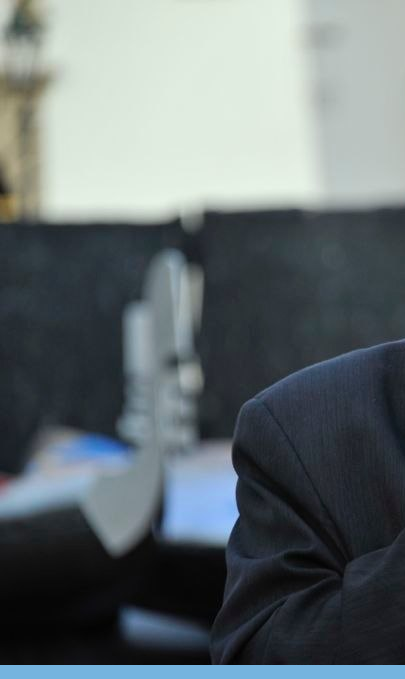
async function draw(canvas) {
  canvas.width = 405;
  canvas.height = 679;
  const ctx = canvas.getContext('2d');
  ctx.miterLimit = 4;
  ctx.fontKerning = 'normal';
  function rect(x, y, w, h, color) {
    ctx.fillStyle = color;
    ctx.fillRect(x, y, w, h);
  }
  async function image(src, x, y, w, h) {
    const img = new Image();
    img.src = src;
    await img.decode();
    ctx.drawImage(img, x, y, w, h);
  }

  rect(0, 0, 405, 679, '#75b4df');
  await image('assets/img1.png', 0, 0, 405, 665);
}

draw(document.querySelector('canvas'));
